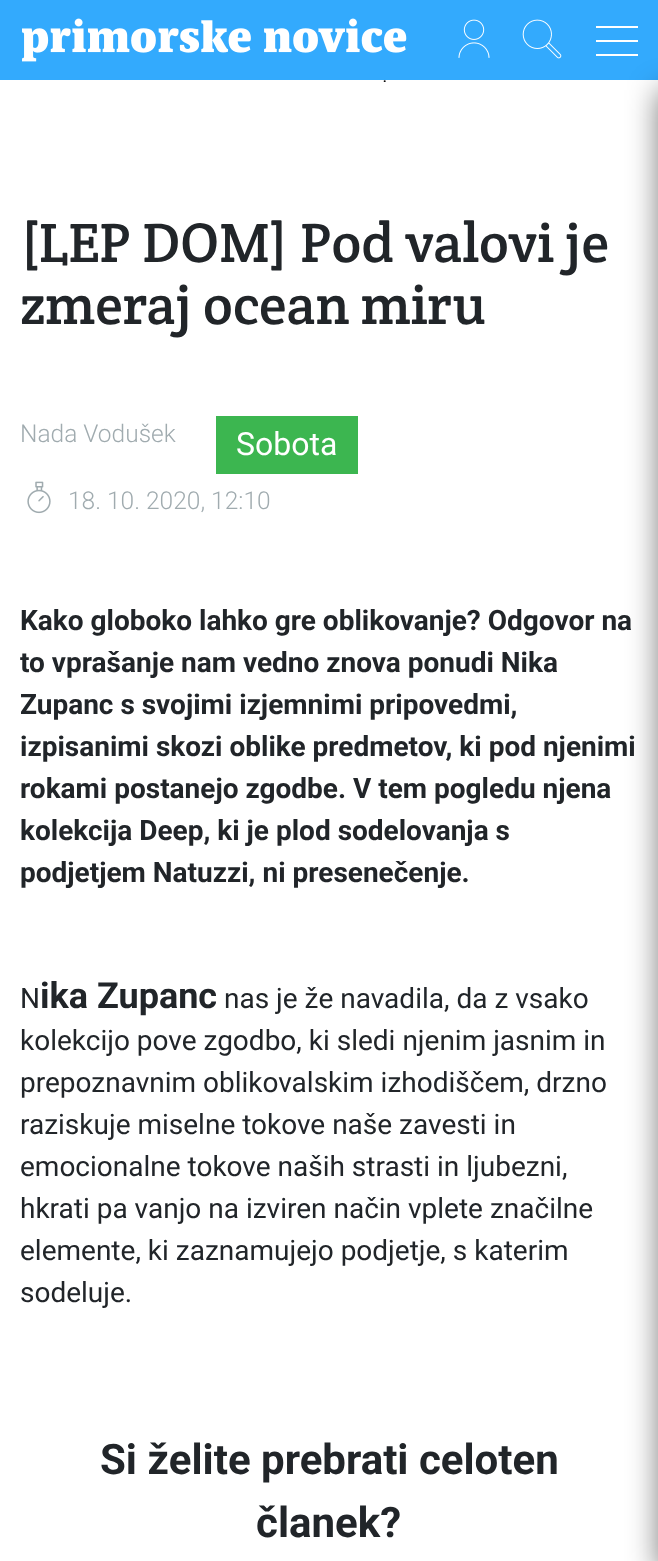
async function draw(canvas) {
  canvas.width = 658;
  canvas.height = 1561;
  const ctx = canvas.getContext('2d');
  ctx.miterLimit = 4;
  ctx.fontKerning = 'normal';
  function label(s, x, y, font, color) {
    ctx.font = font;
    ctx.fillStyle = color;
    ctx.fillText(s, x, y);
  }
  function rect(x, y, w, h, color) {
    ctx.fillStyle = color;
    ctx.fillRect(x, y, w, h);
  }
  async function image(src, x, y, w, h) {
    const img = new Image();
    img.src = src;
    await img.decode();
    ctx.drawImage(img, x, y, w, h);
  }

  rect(0, 0, 658, 1561, '#fff');
  rect(0, 0, 658, 80, '#33aafd');
  await image('assets/img1.png', 22, 18, 385, 44);
  await image('assets/img2.png', 458, 19, 32, 39);
  await image('assets/img3.png', 522, 19, 40, 40);
  rect(596, 40, 42, 2, '#fff');
  rect(596, 26, 42, 2, '#fff');
  rect(596, 54, 42, 2, '#fff');
  ctx.fillStyle = '#00000080';
  ctx.filter = 'blur(15px)';
  ctx.beginPath();
  ctx.rect(658, 90, 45, 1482);
  ctx.fill();
  ctx.filter = 'none';
  label('.', 382, 82, '300 24px Roboto', '#000');
  label('[LEP DOM] Pod valovi je', 20, 262, '56px Crete Round', '#212529');
  label('zmeraj ocean miru', 20, 324, '56px Crete Round', '#212529');
  label('Nada Vodušek', 20, 442, '300 24.5px Roboto', '#a0abaf');
  rect(216, 416, 142, 58, '#3cb650');
  label('Sobota', 236, 455, '32px Roboto', '#fff');
  await image('assets/img4.png', 27, 481, 24, 33);
  label('18. 10. 2020, 12:10', 68, 509, '300 24.5px Roboto', '#a0abaf');
  label('Kako globoko lahko gre oblikovanje? Odgovor na', 20, 630, 'bold 28px Roboto', '#212529');
  label('to vprašanje nam vedno znova ponudi Nika', 20, 672, 'bold 28px Roboto', '#212529');
  label('Zupanc s svojimi izjemnimi pripovedmi,', 20, 714, 'bold 28px Roboto', '#212529');
  label('izpisanimi skozi oblike predmetov, ki pod njenimi', 20, 756, 'bold 28px Roboto', '#212529');
  label('rokami postanejo zgodbe. V tem pogledu njena', 20, 798, 'bold 28px Roboto', '#212529');
  label('kolekcija Deep, ki je plod sodelovanja s', 20, 840, 'bold 28px Roboto', '#212529');
  label('podjetjem Natuzzi, ni presenečenje.', 20, 882, 'bold 28px Roboto', '#212529');
  label('N', 20, 1008, '28px Roboto', '#212529');
  label('ika Zupanc', 40, 1008, 'bold 36px Roboto', '#212529');
  label('nas je že navadila, da z vsako', 224, 1008, '28px Roboto', '#212529');
  label('kolekcijo pove zgodbo, ki sledi njenim jasnim in', 20, 1050, '28px Roboto', '#212529');
  label('prepoznavnim oblikovalskim izhodiščem, drzno', 20, 1092, '28px Roboto', '#212529');
  label('raziskuje miselne tokove naše zavesti in', 20, 1134, '28px Roboto', '#212529');
  label('emocionalne tokove naših strasti in ljubezni,', 20, 1176, '28px Roboto', '#212529');
  label('hkrati pa vanjo na izviren način vplete značilne', 20, 1218, '28px Roboto', '#212529');
  label('elemente, ki zaznamujejo podjetje, s katerim', 20, 1260, '28px Roboto', '#212529');
  label('sodeluje.', 20, 1302, '28px Roboto', '#212529');
  label('Si želite prebrati celoten', 100, 1474, 'bold 42px Roboto', '#212529');
  label('članek?', 256, 1537, 'bold 42px Roboto', '#212529');
}

draw(document.querySelector('canvas'));
